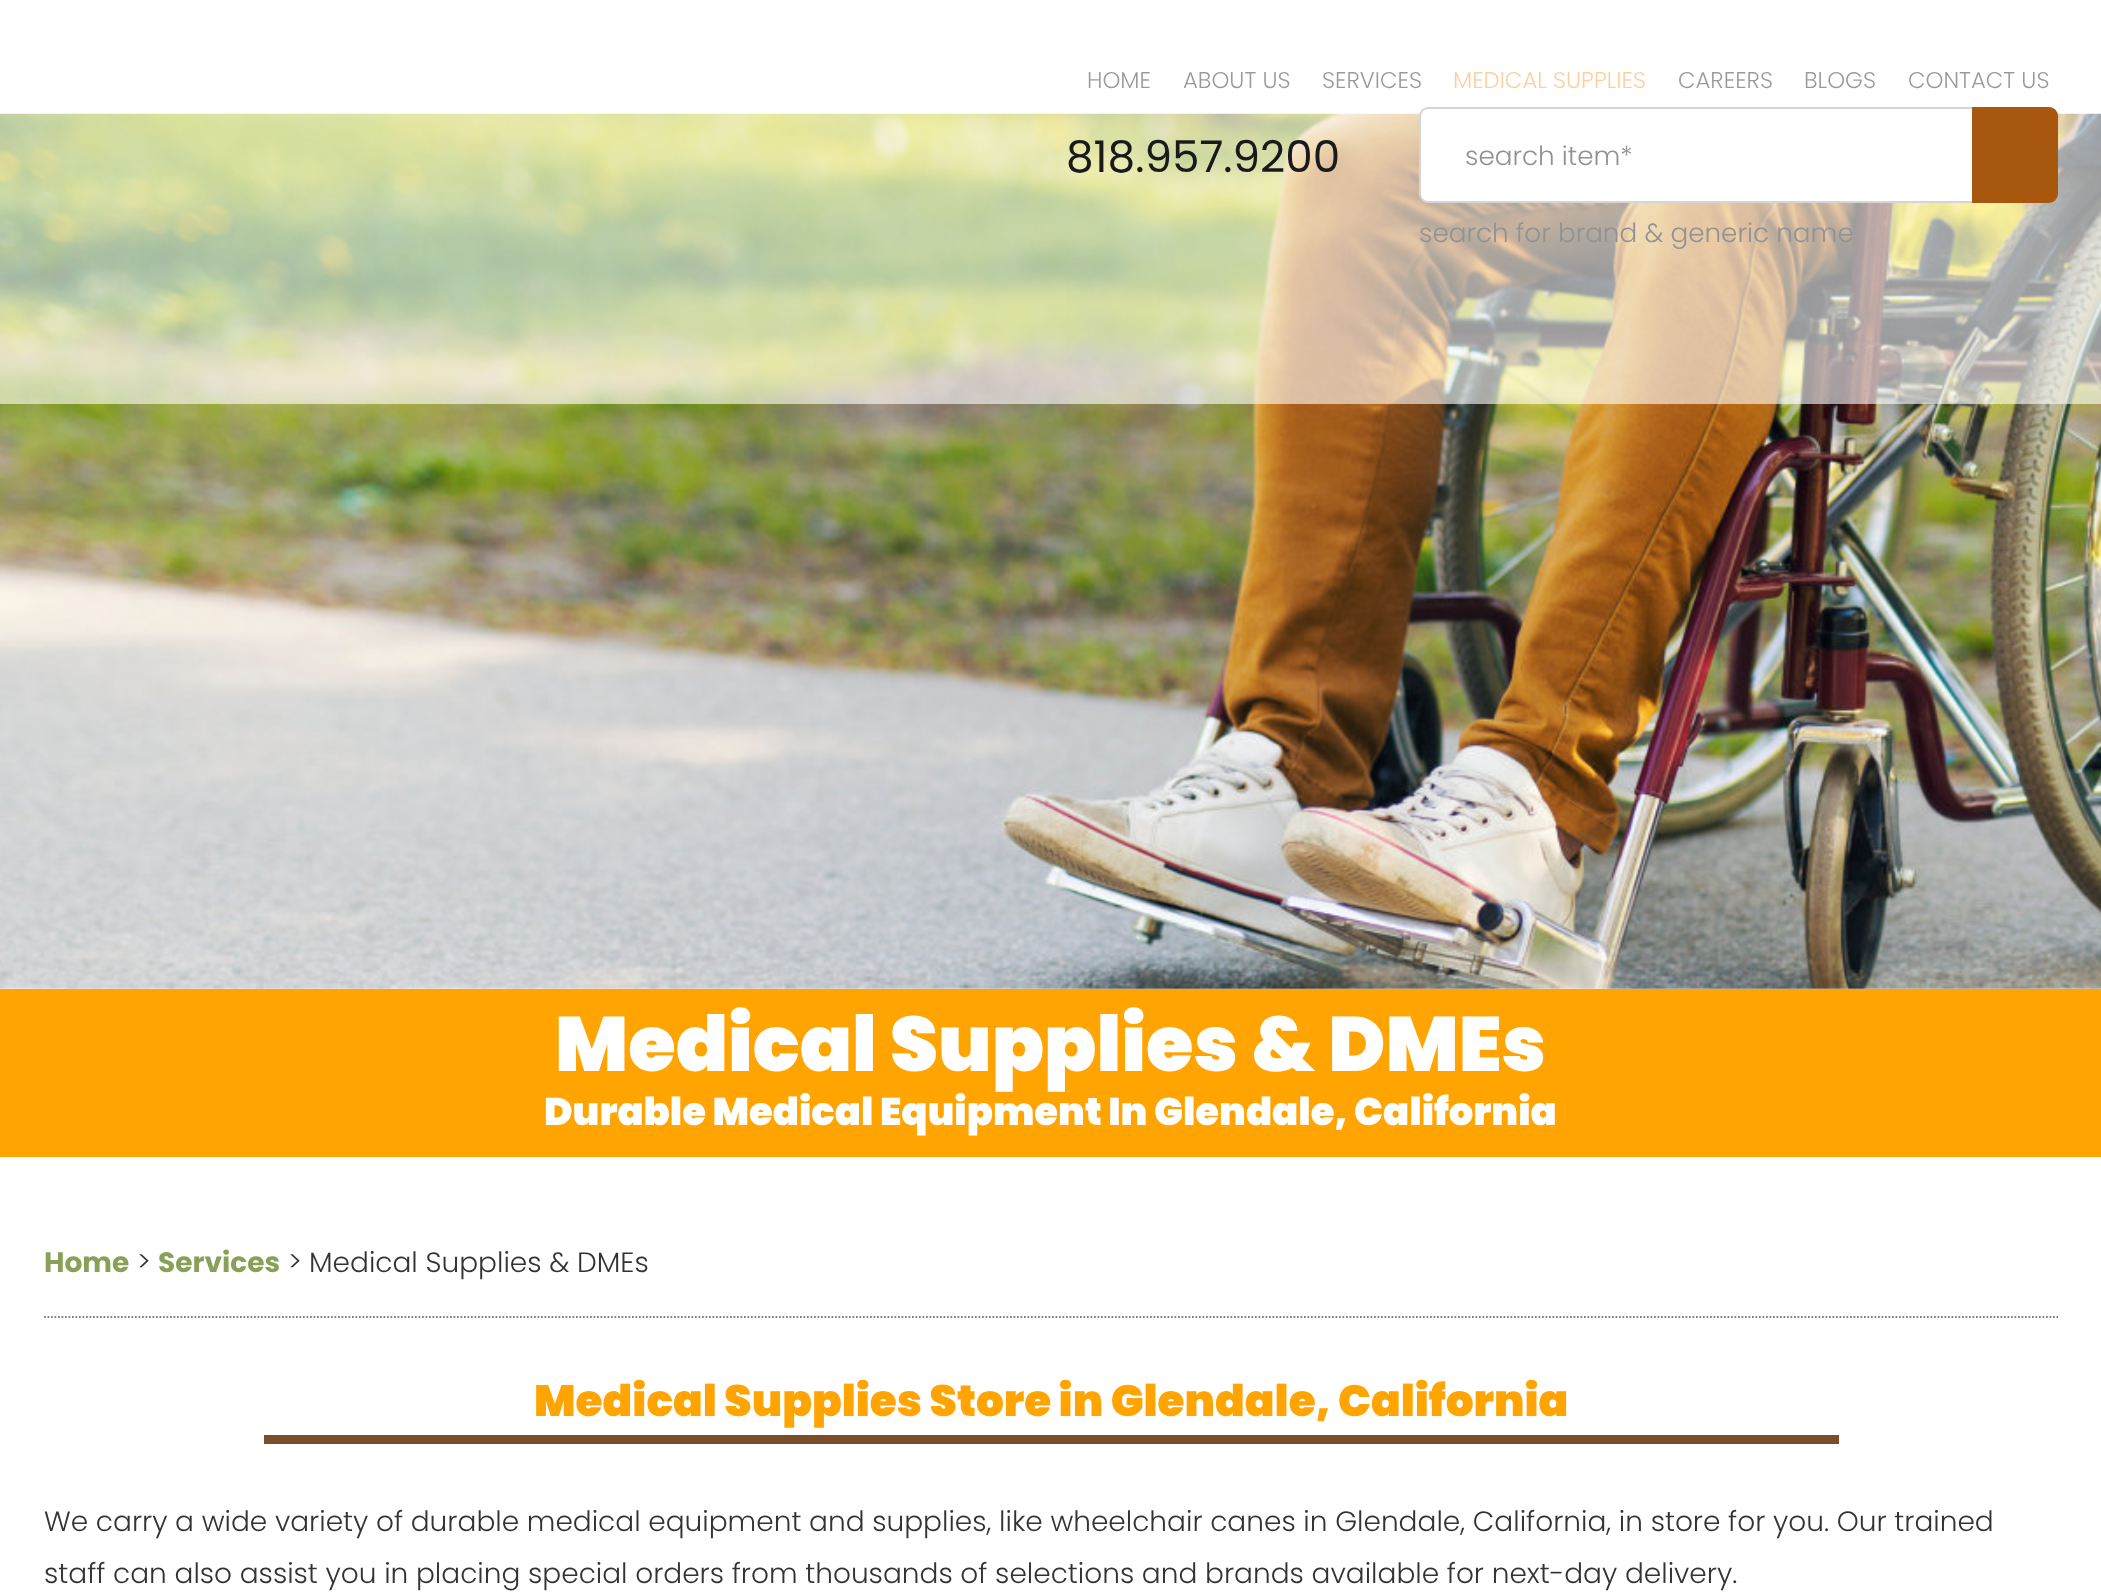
async function draw(canvas) {
  canvas.width = 2101;
  canvas.height = 1594;
  const ctx = canvas.getContext('2d');
  ctx.miterLimit = 4;
  ctx.fontKerning = 'normal';
  function label(s, x, y, font, color) {
    ctx.font = font;
    ctx.fillStyle = color;
    ctx.fillText(s, x, y);
  }
  function rect(x, y, w, h, color) {
    ctx.fillStyle = color;
    ctx.fillRect(x, y, w, h);
  }
  async function image(src, x, y, w, h) {
    const img = new Image();
    img.src = src;
    await img.decode();
    ctx.drawImage(img, x, y, w, h);
  }
  let path;

  rect(0, 0, 2101, 1594, '#fff');
  label('HOME', 1087, 88, '300 22.75px Poppins', '#000');
  label('ABOUT US', 1183, 88, '300 22.75px Poppins', '#000');
  label('SERVICES', 1322, 88, '300 22.75px Poppins', '#000');
  label('MEDICAL SUPPLIES', 1453, 88, '300 22.75px Poppins', '#f68812');
  label('CAREERS', 1678, 88, '300 22.75px Poppins', '#000');
  label('BLOGS', 1804, 88, '300 22.75px Poppins', '#000');
  label('CONTACT US', 1908, 88, '300 22.75px Poppins', '#000');
  await image('assets/img1.png', 0, 113, 2101, 876);
  rect(0, 71, 2101, 333, '#ffffff99');
  label('818.957.9200', 1066, 172, '43.75px Poppins', '#1a1a1a');
  ctx.fillStyle = '#fff';
  ctx.beginPath();
  ctx.roundRect(1420, 108, 637, 94, 8);
  ctx.fill();
  ctx.strokeStyle = '#d5d5d5';
  ctx.lineWidth = 2;
  ctx.stroke();
  label('search item*', 1465, 165, '300 26.25px Poppins', '#929292');
  ctx.fillStyle = '#a7580e';
  ctx.beginPath();
  ctx.roundRect(1972, 107, 86, 96, [0, 9, 9, 0]);
  ctx.fill();
  label('search for brand & generic name', 1419, 242, '300 26.25px Poppins', '#929292');
  rect(0, 989, 2101, 168, '#ffa400');
  label('Medical Supplies & DMEs', 555, 1071, '900 77px Poppins', '#fff');
  label('Durable Medical Equipment In Glendale, California', 544, 1125, '900 38.5px Poppins', '#fff');
  path = new Path2D('M44 1317H2058');
  ctx.strokeStyle = '#808080';
  ctx.lineWidth = 1.8;
  ctx.setLineDash([1.75, 1.75]);
  ctx.stroke(path);
  label('Home', 44, 1272, 'bold 28px Poppins', '#88a058');
  label('>', 137, 1271, '300 28px Poppins', '#333');
  label('Services', 158, 1272, 'bold 28px Poppins', '#88a058');
  label('>', 288, 1271, '300 28px Poppins', '#333');
  label('Medical Supplies & DMEs', 309, 1272, '300 28px Poppins', '#333');
  label('Medical Supplies Store in Glendale, California', 534, 1416, '900 43.75px Poppins', '#ffa400');
  rect(264, 1435, 1575, 9, '#7a4e2b');
  label('We carry a wide variety of durable medical equipment and supplies, like wheelchair canes in Glendale, California, in store for you. Our trained', 44, 1531, '300 28px Poppins', '#333');
  label('staff can also assist you in placing special orders from thousands of selections and brands available for next-day delivery.', 44, 1583, '300 28px Poppins', '#333');
}

draw(document.querySelector('canvas'));
